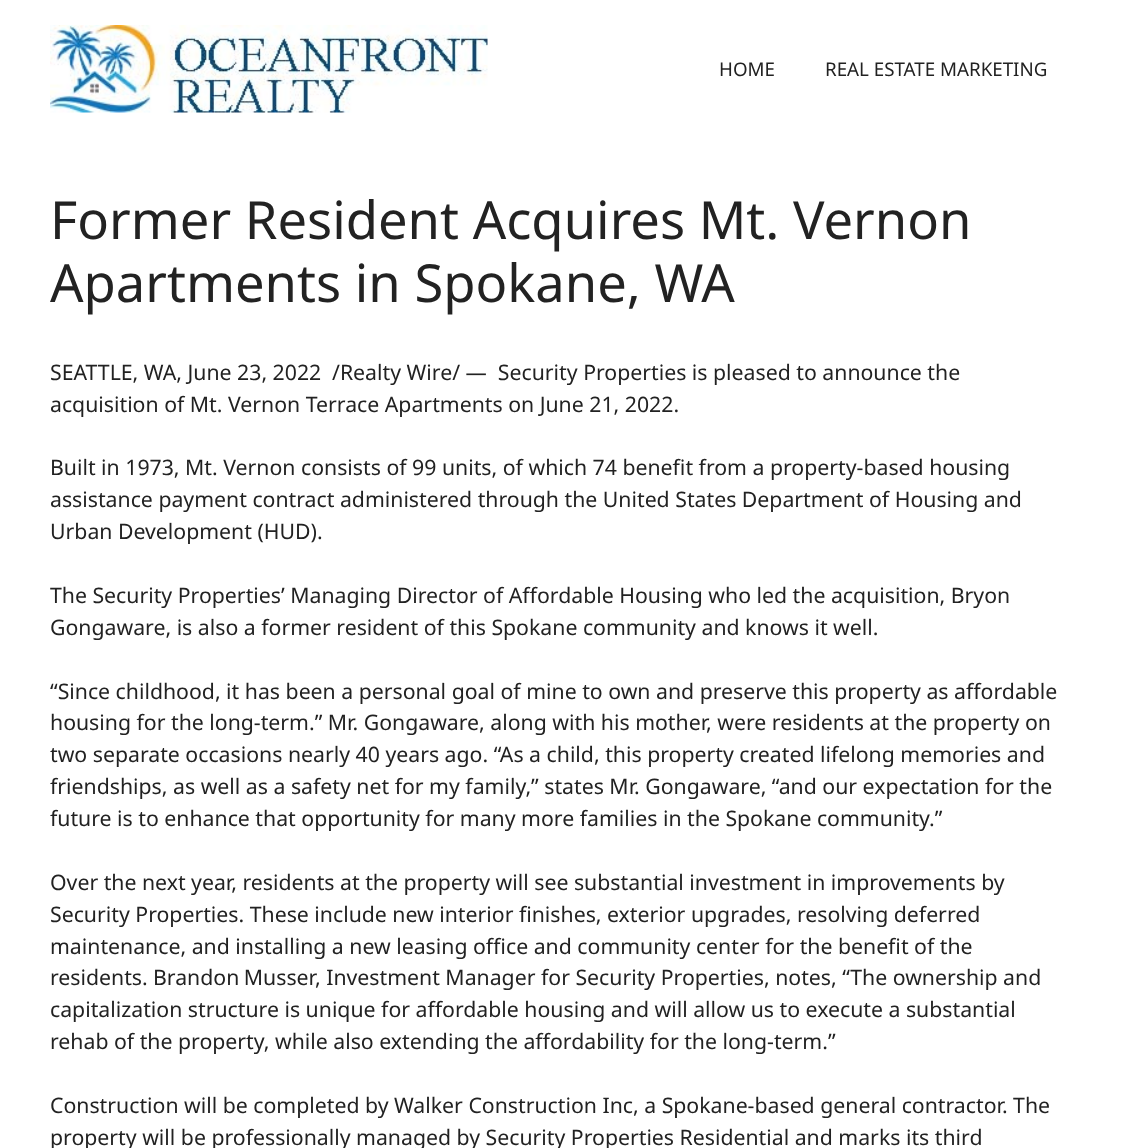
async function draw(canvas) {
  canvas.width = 1122;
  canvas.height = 1148;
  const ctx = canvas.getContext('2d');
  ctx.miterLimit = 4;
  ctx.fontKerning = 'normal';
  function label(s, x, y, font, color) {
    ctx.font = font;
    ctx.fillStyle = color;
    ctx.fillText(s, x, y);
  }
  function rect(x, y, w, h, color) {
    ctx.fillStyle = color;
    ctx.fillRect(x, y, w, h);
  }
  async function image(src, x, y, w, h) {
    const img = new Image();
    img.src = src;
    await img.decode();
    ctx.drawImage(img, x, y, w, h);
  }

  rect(0, 0, 1122, 1148, '#fff');
  await image('assets/img1.png', 50, 25, 438, 88);
  label('HOME', 719, 76, '18.75px Noto Sans', '#222');
  label('REAL ESTATE MARKETING', 825, 76, '18.75px Noto Sans', '#222');
  label('Former Resident Acquires Mt. Vernon', 50, 239, '52.5px Noto Sans', '#222');
  label('Apartments in Spokane, WA', 50, 302, '52.5px Noto Sans', '#222');
  label('SEATTLE, WA, June 23, 2022', 50, 380, '21.25px Noto Sans', '#222');
  label('/Realty Wire/ —  Security Properties is pleased to announce the', 332, 380, '21.25px Noto Sans', '#222');
  label('acquisition of Mt. Vernon Terrace Apartments on June 21, 2022.', 50, 412, '21.25px Noto Sans', '#222');
  label('Built in 1973, Mt. Vernon consists of 99 units, of which 74 benefit from a property-based housing', 50, 475, '21.25px Noto Sans', '#222');
  label('assistance payment contract administered through the United States Department of Housing and', 50, 507, '21.25px Noto Sans', '#222');
  label('Urban Development (HUD).', 50, 539, '21.25px Noto Sans', '#222');
  label('The Security Properties’ Managing Director of Affordable Housing who led the acquisition, Bryon', 50, 603, '21.25px Noto Sans', '#222');
  label('Gongaware, is also a former resident of this Spokane community and knows it well.', 50, 635, '21.25px Noto Sans', '#222');
  label('“Since childhood, it has been a personal goal of mine to own and preserve this property as affordable', 50, 699, '21.25px Noto Sans', '#222');
  label('housing for the long-term.” Mr. Gongaware, along with his mother, were residents at the property on', 50, 730, '21.25px Noto Sans', '#222');
  label('two separate occasions nearly 40 years ago. “As a child, this property created lifelong memories and', 50, 762, '21.25px Noto Sans', '#222');
  label('friendships, as well as a safety net for my family,” states Mr. Gongaware, “and our expectation for the', 50, 794, '21.25px Noto Sans', '#222');
  label('future is to enhance that opportunity for many more families in the Spokane community.”', 50, 826, '21.25px Noto Sans', '#222');
  label('Over the next year, residents at the property will see substantial investment in improvements by', 50, 890, '21.25px Noto Sans', '#222');
  label('Security Properties. These include new interior finishes, exterior upgrades, resolving deferred', 50, 922, '21.25px Noto Sans', '#222');
  label('maintenance, and installing a new leasing office and community center for the benefit of the', 50, 954, '21.25px Noto Sans', '#222');
  label('residents.', 50, 985, '21.25px Noto Sans', '#222');
  ctx.wordSpacing = '-1px';
  label('Brandon Musser', 153, 985, '21.25px Noto Sans', '#222');
  ctx.wordSpacing = '0px';
  label(', Investment Manager for Security Properties, notes, “The ownership and', 315, 985, '21.25px Noto Sans', '#222');
  label('capitalization structure is unique for affordable housing and will allow us to execute a substantial', 50, 1017, '21.25px Noto Sans', '#222');
  label('rehab of the property, while also extending the affordability for the long-term.”', 50, 1049, '21.25px Noto Sans', '#222');
  label('Construction will be completed by Walker Construction Inc, a Spokane-based general contractor. The', 50, 1113, '21.25px Noto Sans', '#222');
  label('property will be professionally managed by Security Properties Residential and marks its third', 50, 1145, '21.25px Noto Sans', '#222');
}

draw(document.querySelector('canvas'));
